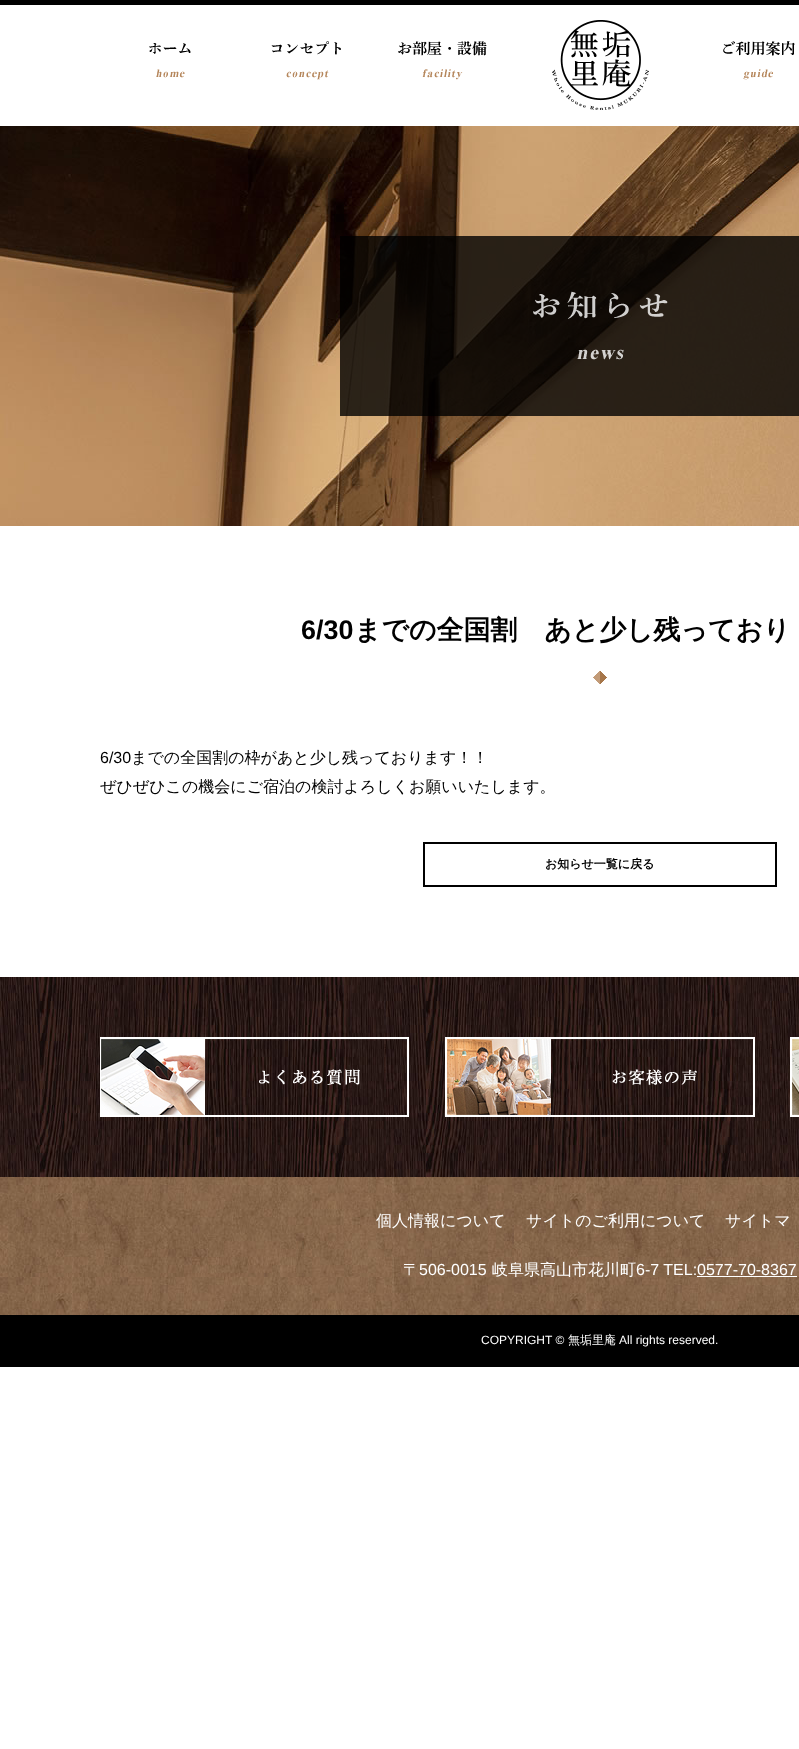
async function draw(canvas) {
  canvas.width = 799;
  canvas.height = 1749;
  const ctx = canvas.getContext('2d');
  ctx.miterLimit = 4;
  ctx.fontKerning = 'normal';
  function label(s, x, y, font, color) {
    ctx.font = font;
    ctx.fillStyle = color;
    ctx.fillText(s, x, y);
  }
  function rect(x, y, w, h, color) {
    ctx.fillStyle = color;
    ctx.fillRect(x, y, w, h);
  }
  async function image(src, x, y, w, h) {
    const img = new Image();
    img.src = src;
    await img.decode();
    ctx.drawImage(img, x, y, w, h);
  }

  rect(0, 0, 799, 1749, '#fff');
  rect(0, 0, 799, 5, '#000');
  await image('assets/img1.png', 552, 20, 97, 90);
  await image('assets/img2.png', 149, 43, 42, 35);
  await image('assets/img3.png', 271, 41, 70, 39);
  await image('assets/img4.png', 398, 41, 89, 39);
  await image('assets/img5.png', 723, 41, 72, 39);
  await image('assets/img6.png', 0, 126, 799, 400);
  rect(340, 236, 459, 180, '#000000cc');
  await image('assets/img7.png', 533, 291, 135, 69);
  await image('assets/img8.png', 593, 671, 14, 13);
  label('6/30', 301, 639, 'bold 26.9px Liberation Sans', '#000');
  label('までの全国割　あと少し残っており', 354, 639, 'bold 26.9px WenQuanYi Zen Hei', '#000');
  label('6/30', 100, 763, '16px Liberation Sans', '#000');
  label('までの全国割の枠があと少し残っております！！', 131, 763, '500 16px WenQuanYi Zen Hei', '#000');
  label('ぜひぜひこの機会にご宿泊の検討よろしくお願いいたします。', 100, 792, '500 16px WenQuanYi Zen Hei', '#000');
  ctx.strokeStyle = '#000';
  ctx.lineWidth = 2;
  ctx.strokeRect(424, 843, 352, 43);
  label('お知らせ一覧に戻る', 545, 868, 'bold 12px WenQuanYi Zen Hei', '#000');
  await image('assets/img9.png', 0, 977, 799, 200);
  await image('assets/img10.png', 100, 1037, 309, 80);
  await image('assets/img11.png', 445, 1037, 310, 80);
  await image('assets/img12.png', 790, 1037, 9, 80);
  await image('assets/img13.png', 0, 1177, 799, 138);
  label('個人情報について', 376, 1226, '500 16px WenQuanYi Zen Hei', '#fff');
  label('サイトのご利用について', 526, 1226, '500 16px WenQuanYi Zen Hei', '#fff');
  label('サイトマ', 725, 1226, '500 16px WenQuanYi Zen Hei', '#fff');
  label('〒', 403, 1275, '500 16px WenQuanYi Zen Hei', '#fff');
  label('506-0015', 419, 1275, '16px Liberation Sans', '#fff');
  label('岐阜県高山市花川町', 492, 1275, '500 16px WenQuanYi Zen Hei', '#fff');
  label('6-7 TEL:0577-70-8367', 636, 1275, '16px Liberation Sans', '#fff');
  rect(697, 1276, 100, 1, '#fff');
  rect(0, 1315, 799, 52, '#000');
  label('COPYRIGHT ©', 481, 1344, '12px Liberation Sans', '#fff');
  label('無垢里庵', 568, 1344, '500 12px WenQuanYi Zen Hei', '#fff');
  label('All rights reserved.', 619, 1344, '12px Liberation Sans', '#fff');
}

draw(document.querySelector('canvas'));
